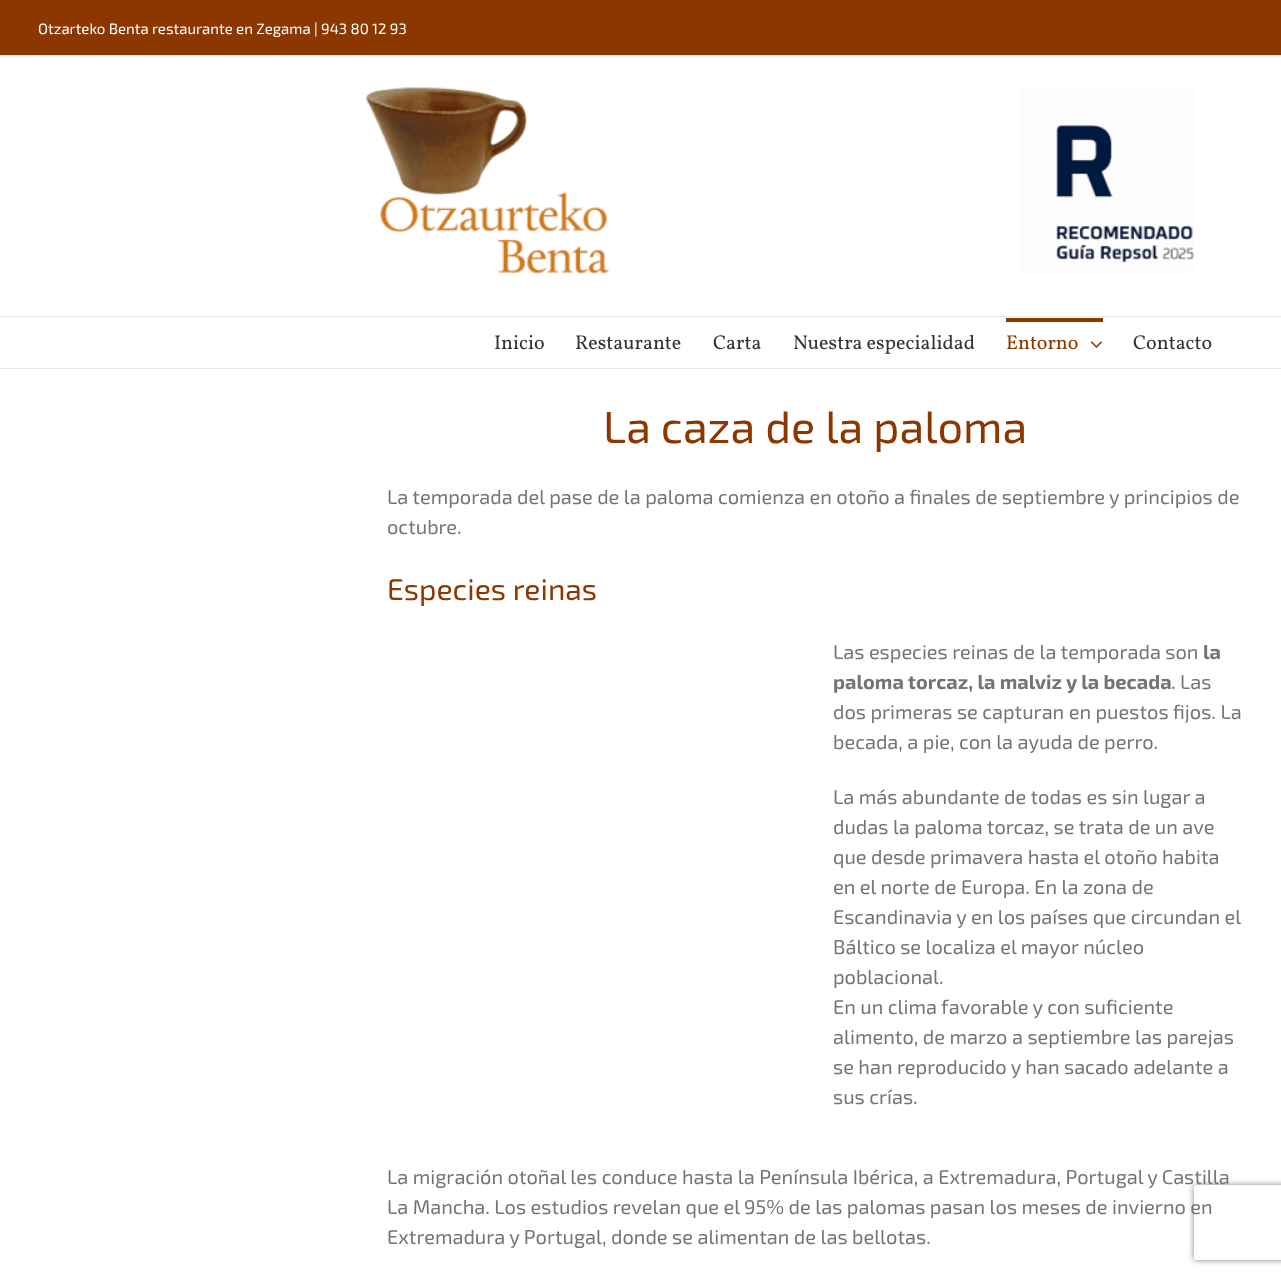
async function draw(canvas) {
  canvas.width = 1281;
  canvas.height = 1277;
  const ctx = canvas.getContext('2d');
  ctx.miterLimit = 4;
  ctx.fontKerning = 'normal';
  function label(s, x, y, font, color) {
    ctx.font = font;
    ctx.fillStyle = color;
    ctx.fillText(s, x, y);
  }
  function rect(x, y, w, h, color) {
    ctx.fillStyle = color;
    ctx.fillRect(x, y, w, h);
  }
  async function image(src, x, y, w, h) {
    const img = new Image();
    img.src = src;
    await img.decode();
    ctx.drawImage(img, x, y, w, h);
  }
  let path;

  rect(0, 0, 1281, 1277, '#fff');
  rect(0, 0, 1281, 55, '#8c3700');
  rect(0, 55, 1281, 1, '#e5e5e5');
  label('Otzarteko Benta restaurante en Zegama | 943 80 12 93', 38, 34, '15px "Exo 2"', '#fff');
  rect(0, 316, 1281, 1, '#e5e5e5');
  await image('assets/img1.png', 365, 87, 829, 187);
  rect(0, 368, 1281, 1, '#e5e5e5');
  label('Inicio', 494, 349, '20px Vollkorn', '#333');
  label('Restaurante', 575, 349, '20px Vollkorn', '#333');
  label('Carta', 713, 349, '20px Vollkorn', '#333');
  label('Nuestra especialidad', 793, 349, '20px Vollkorn', '#333');
  rect(1006, 318, 97, 4, '#8c3700');
  label('Entorno', 1006, 349, '20px Vollkorn', '#8c3700');
  await image('assets/img2.png', 1090, 341, 12, 7);
  label('Contacto', 1133, 349, '20px Vollkorn', '#333');
  label('La caza de la paloma', 603, 443, '45px "Exo 2"', '#8c3700');
  label('La temporada del pase de la paloma comienza en otoño a finales de septiembre y principios de', 387, 504, '20px "Exo 2"', '#747474');
  label('octubre.', 387, 534, '20px "Exo 2"', '#747474');
  label('Especies reinas', 387, 600, '30px "Exo 2"', '#8c3700');
  label('Las especies reinas de la temporada son', 833, 659, '20px "Exo 2"', '#747474');
  label('la', 1203, 659, 'bold 20px "Exo 2"', '#747474');
  label('paloma torcaz, la malviz y la becada', 833, 689, 'bold 20px "Exo 2"', '#747474');
  label('. Las', 1171, 689, '20px "Exo 2"', '#747474');
  label('dos primeras se capturan en puestos fijos. La', 833, 719, '20px "Exo 2"', '#747474');
  label('becada, a pie, con la ayuda de perro.', 833, 749, '20px "Exo 2"', '#747474');
  label('La más abundante de todas es sin lugar a', 833, 804, '20px "Exo 2"', '#747474');
  label('dudas la paloma torcaz, se trata de un ave', 833, 834, '20px "Exo 2"', '#747474');
  label('que desde primavera hasta el otoño habita', 833, 864, '20px "Exo 2"', '#747474');
  label('en el norte de Europa. En la zona de', 833, 894, '20px "Exo 2"', '#747474');
  label('Escandinavia y en los países que circundan el', 833, 924, '20px "Exo 2"', '#747474');
  label('Báltico se localiza el mayor núcleo', 833, 954, '20px "Exo 2"', '#747474');
  label('poblacional.', 833, 984, '20px "Exo 2"', '#747474');
  label('En un clima favorable y con suficiente', 833, 1014, '20px "Exo 2"', '#747474');
  label('alimento, de marzo a septiembre las parejas', 833, 1044, '20px "Exo 2"', '#747474');
  label('se han reproducido y han sacado adelante a', 833, 1074, '20px "Exo 2"', '#747474');
  label('sus crías.', 833, 1104, '20px "Exo 2"', '#747474');
  ctx.save();
  path = new Path2D('M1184 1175H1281V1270H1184ZM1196.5 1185H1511.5C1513 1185 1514 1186 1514 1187.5V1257.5C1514 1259 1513 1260 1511.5 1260H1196.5C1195 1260 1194 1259 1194 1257.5V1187.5C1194 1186 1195 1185 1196.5 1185Z');
  ctx.clip(path, 'evenodd');
  ctx.fillStyle = '#808080';
  ctx.filter = 'blur(3px)';
  ctx.beginPath();
  ctx.roundRect(1194, 1185, 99, 75, 2.5);
  ctx.fill();
  ctx.filter = 'none';
  ctx.restore();
  label('La migración otoñal les conduce hasta la Península Ibérica, a Extremadura, Portugal y Castilla', 387, 1184, '20px "Exo 2"', '#747474');
  label('La Mancha. Los estudios revelan que el 95% de las palomas pasan los meses de invierno en', 387, 1214, '20px "Exo 2"', '#747474');
  label('Extremadura y Portugal, donde se alimentan de las bellotas.', 387, 1244, '20px "Exo 2"', '#747474');
}

draw(document.querySelector('canvas'));
